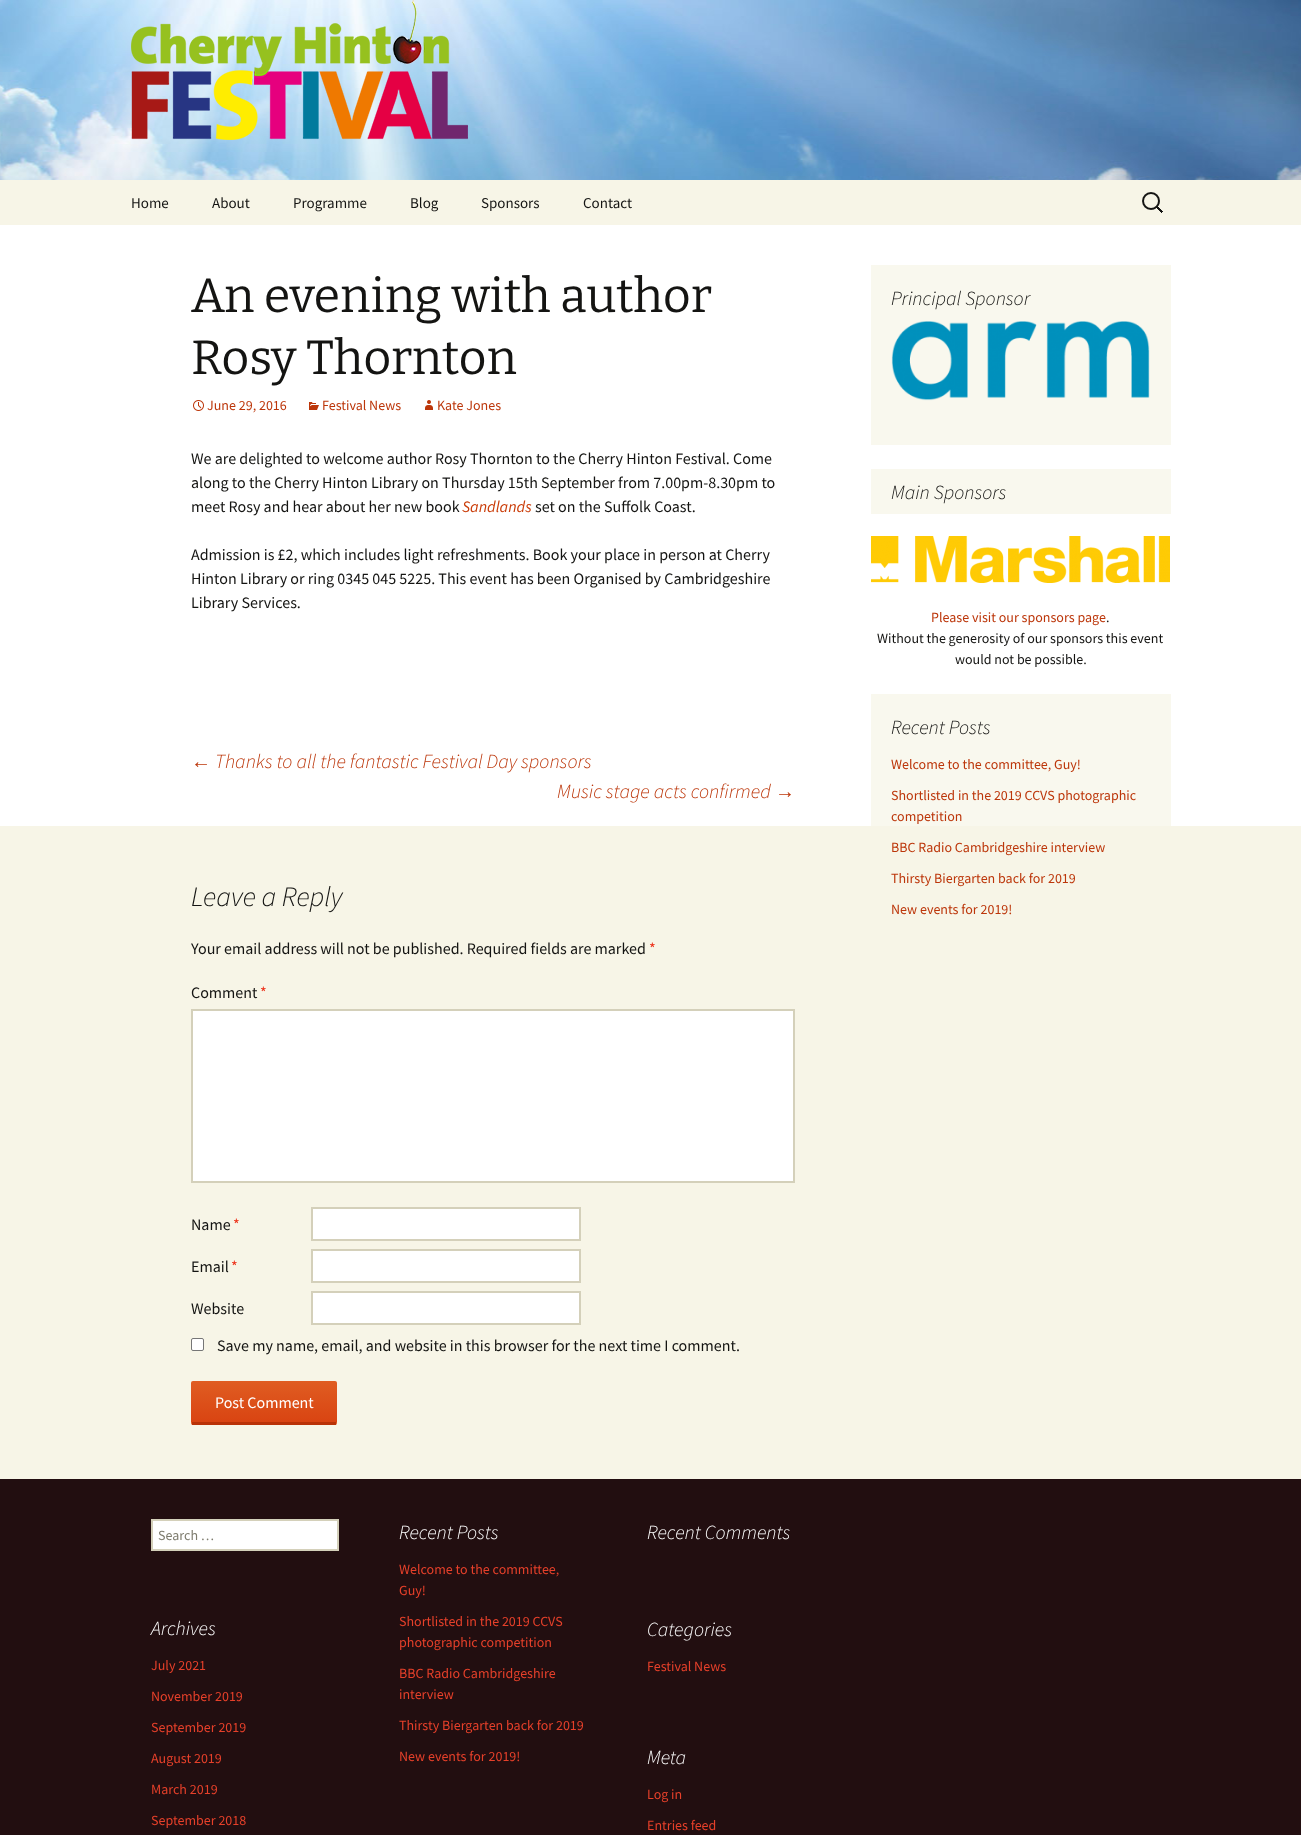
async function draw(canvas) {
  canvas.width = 1301;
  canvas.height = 1835;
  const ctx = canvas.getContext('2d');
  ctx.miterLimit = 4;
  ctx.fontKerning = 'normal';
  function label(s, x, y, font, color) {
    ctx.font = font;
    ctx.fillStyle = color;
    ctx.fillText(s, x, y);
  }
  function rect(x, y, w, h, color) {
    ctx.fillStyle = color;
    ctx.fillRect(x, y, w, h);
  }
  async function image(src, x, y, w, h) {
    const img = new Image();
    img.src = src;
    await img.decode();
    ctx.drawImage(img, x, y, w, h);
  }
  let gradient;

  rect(0, 0, 1301, 1835, '#fff');
  rect(871, 694, 300, 132, '#f9f8ee');
  await image('assets/img1.png', 0, 0, 1301, 180);
  await image('assets/img2.png', 131, 0, 337, 140);
  rect(0, 180, 1301, 45, '#f7f5e7');
  label('Home', 131, 208, '15px Source Sans Pro', '#141412');
  label('About', 212, 208, '15px Source Sans Pro', '#141412');
  label('Programme', 293, 208, '15px Source Sans Pro', '#141412');
  label('Blog', 410, 208, '15px Source Sans Pro', '#141412');
  label('Sponsors', 481, 208, '15px Source Sans Pro', '#141412');
  label('Contact', 583, 208, '15px Source Sans Pro', '#141412');
  await image('assets/img3.png', 1142, 192, 21, 21);
  label('An evening with author', 191, 312, '48px Bitter', '#141412');
  label('Rosy Thornton', 191, 374, '48px Bitter', '#141412');
  await image('assets/img4.png', 193, 400, 11, 11);
  label('June 29, 2016', 207, 410, '14px Source Sans Pro', '#bc360a');
  await image('assets/img5.png', 309, 402, 10, 8);
  label('Festival News', 322, 410, '14px Source Sans Pro', '#bc360a');
  await image('assets/img6.png', 425, 400, 8, 10);
  label('Kate Jones', 437, 410, '14px Source Sans Pro', '#bc360a');
  label('We are delighted to welcome author Rosy Thornton to the Cherry Hinton Festival. Come', 191, 464, '16px Source Sans Pro', '#141412');
  label('along to the Cherry Hinton Library on Thursday 15th September from 7.00pm-8.30pm to', 191, 488, '16px Source Sans Pro', '#141412');
  label('meet Rosy and hear about her new book', 191, 512, '16px Source Sans Pro', '#141412');
  label('Sandlands', 462, 512, 'italic 16px Source Sans Pro', '#ca3c08');
  label('set on the Suffolk Coast.', 535, 512, '16px Source Sans Pro', '#141412');
  label('Admission is £2, which includes light refreshments. Book your place in person at Cherry', 191, 560, '16px Source Sans Pro', '#141412');
  label('Hinton Library or ring 0345 045 5225. This event has been Organised by Cambridgeshire', 191, 584, '16px Source Sans Pro', '#141412');
  label('Library Services.', 191, 608, '16px Source Sans Pro', '#141412');
  label('←', 191, 768, 'italic 20px Liberation Sans', '#bc360a');
  label('Thanks to all the fantastic Festival Day sponsors', 215, 768, 'italic 300 20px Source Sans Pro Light', '#bc360a');
  label('Music stage acts confirmed', 557, 798, 'italic 300 20px Source Sans Pro Light', '#bc360a');
  label('→', 775, 798, 'italic 20px Liberation Sans', '#bc360a');
  rect(0, 826, 1301, 653, '#f7f5e7');
  label('Leave a Reply', 191, 906, 'italic 300 28px Source Sans Pro Light', '#141412');
  label('Your email address will not be published. Required fields are marked', 191, 954, '16px Source Sans Pro', '#141412');
  label('*', 649, 954, '16px Source Sans Pro', '#ed331c');
  label('Comment', 191, 998, '16px Source Sans Pro', '#141412');
  label('*', 260, 998, '16px Source Sans Pro', '#ed331c');
  ctx.fillStyle = '#fff';
  ctx.beginPath();
  ctx.rect(192, 1010, 602, 172);
  ctx.fill();
  ctx.strokeStyle = '#d4d0ba';
  ctx.lineWidth = 2;
  ctx.stroke();
  label('Name', 191, 1230, '16px Source Sans Pro', '#141412');
  label('*', 233, 1230, '16px Source Sans Pro', '#ed331c');
  ctx.fillStyle = '#fff';
  ctx.beginPath();
  ctx.rect(312, 1208, 268, 32);
  ctx.fill();
  ctx.stroke();
  label('Email', 191, 1272, '16px Source Sans Pro', '#141412');
  label('*', 231, 1272, '16px Source Sans Pro', '#ed331c');
  ctx.fillStyle = '#fff';
  ctx.beginPath();
  ctx.rect(312, 1250, 268, 32);
  ctx.fill();
  ctx.stroke();
  label('Website', 191, 1314, '16px Source Sans Pro', '#141412');
  ctx.fillStyle = '#fff';
  ctx.beginPath();
  ctx.rect(312, 1292, 268, 32);
  ctx.fill();
  ctx.stroke();
  ctx.beginPath();
  ctx.roundRect(191.5, 1338.5, 12, 12, 1.5);
  ctx.fill();
  ctx.strokeStyle = '#767676';
  ctx.lineWidth = 1;
  ctx.stroke();
  label('Save my name, email, and website in this browser for the next time I comment.', 217, 1351, '16px Source Sans Pro', '#141412');
  gradient = ctx.createLinearGradient(264, 1381, 264, 1422);
  gradient.addColorStop(0, '#e05d22');
  gradient.addColorStop(1, '#d94412');
  ctx.fillStyle = gradient;
  ctx.beginPath();
  ctx.roundRect(191, 1381, 146, 41, [2, 2, 0, 0]);
  ctx.fill();
  gradient = ctx.createLinearGradient(264, 1422, 264, 1463);
  gradient.addColorStop(0, '#e05d22');
  gradient.addColorStop(1, '#d94412');
  ctx.fillStyle = gradient;
  ctx.beginPath();
  ctx.roundRect(191, 1422, 146, 3, [0, 0, 2, 2]);
  ctx.fill();
  rect(192, 1422, 144, 3, '#b93207');
  label('Post Comment', 215, 1408, '16px Source Sans Pro', '#fff');
  rect(871, 265, 300, 180, '#f9f8ee');
  label('Principal Sponsor', 891, 305, 'italic 300 20px Source Sans Pro Light', '#141412');
  await image('assets/img7.png', 891, 321, 259, 80);
  rect(871, 469, 300, 45, '#f9f8ee');
  label('Main Sponsors', 891, 499, 'italic 300 20px Source Sans Pro Light', '#141412');
  await image('assets/img8.png', 871, 536, 299, 47);
  label('Please visit our sponsors page', 931, 622, '14px Source Sans Pro', '#bc360a');
  label('.', 1106, 622, '14px Source Sans Pro', '#141412');
  label('Without the generosity of our sponsors this event', 877, 643, '14px Source Sans Pro', '#141412');
  label('would not be possible.', 955, 664, '14px Source Sans Pro', '#141412');
  label('Recent Posts', 891, 734, 'italic 300 20px Source Sans Pro Light', '#141412');
  label('Welcome to the committee, Guy!', 891, 769, '14px Source Sans Pro', '#bc360a');
  label('Shortlisted in the 2019 CCVS photographic', 891, 800, '14px Source Sans Pro', '#bc360a');
  label('competition', 891, 821, '14px Source Sans Pro', '#bc360a');
  label('BBC Radio Cambridgeshire interview', 891, 852, '14px Source Sans Pro', '#bc360a');
  label('Thirsty Biergarten back for 2019', 891, 883, '14px Source Sans Pro', '#bc360a');
  label('New events for 2019!', 891, 914, '14px Source Sans Pro', '#bc360a');
  rect(0, 1479, 1301, 356, '#220e10');
  ctx.fillStyle = '#fff';
  ctx.beginPath();
  ctx.rect(152, 1520, 186, 30);
  ctx.fill();
  ctx.strokeStyle = '#d4d0ba';
  ctx.lineWidth = 2;
  ctx.stroke();
  label('Search …', 158, 1540, '14px Source Sans Pro', '#7d7b6d');
  label('Recent Posts', 399, 1539, 'italic 300 20px Source Sans Pro Light', '#fff');
  label('Welcome to the committee,', 399, 1574, '14px Source Sans Pro', '#e6402a');
  label('Guy!', 399, 1595, '14px Source Sans Pro', '#e6402a');
  label('Shortlisted in the 2019 CCVS', 399, 1626, '14px Source Sans Pro', '#e6402a');
  label('photographic competition', 399, 1647, '14px Source Sans Pro', '#e6402a');
  label('BBC Radio Cambridgeshire', 399, 1678, '14px Source Sans Pro', '#e6402a');
  label('interview', 399, 1699, '14px Source Sans Pro', '#e6402a');
  label('Thirsty Biergarten back for 2019', 399, 1730, '14px Source Sans Pro', '#e6402a');
  label('New events for 2019!', 399, 1761, '14px Source Sans Pro', '#e6402a');
  label('Recent Comments', 647, 1539, 'italic 300 20px Source Sans Pro Light', '#fff');
  label('Archives', 151, 1635, 'italic 300 20px Source Sans Pro Light', '#fff');
  label('July 2021', 151, 1670, '14px Source Sans Pro', '#e6402a');
  label('November 2019', 151, 1701, '14px Source Sans Pro', '#e6402a');
  label('September 2019', 151, 1732, '14px Source Sans Pro', '#e6402a');
  label('August 2019', 151, 1763, '14px Source Sans Pro', '#e6402a');
  label('March 2019', 151, 1794, '14px Source Sans Pro', '#e6402a');
  label('September 2018', 151, 1825, '14px Source Sans Pro', '#e6402a');
  label('Categories', 647, 1636, 'italic 300 20px Source Sans Pro Light', '#fff');
  label('Festival News', 647, 1671, '14px Source Sans Pro', '#e6402a');
  label('Meta', 647, 1764, 'italic 300 20px Source Sans Pro Light', '#fff');
  label('Log in', 647, 1799, '14px Source Sans Pro', '#e6402a');
  label('Entries feed', 647, 1830, '14px Source Sans Pro', '#e6402a');
}

draw(document.querySelector('canvas'));
